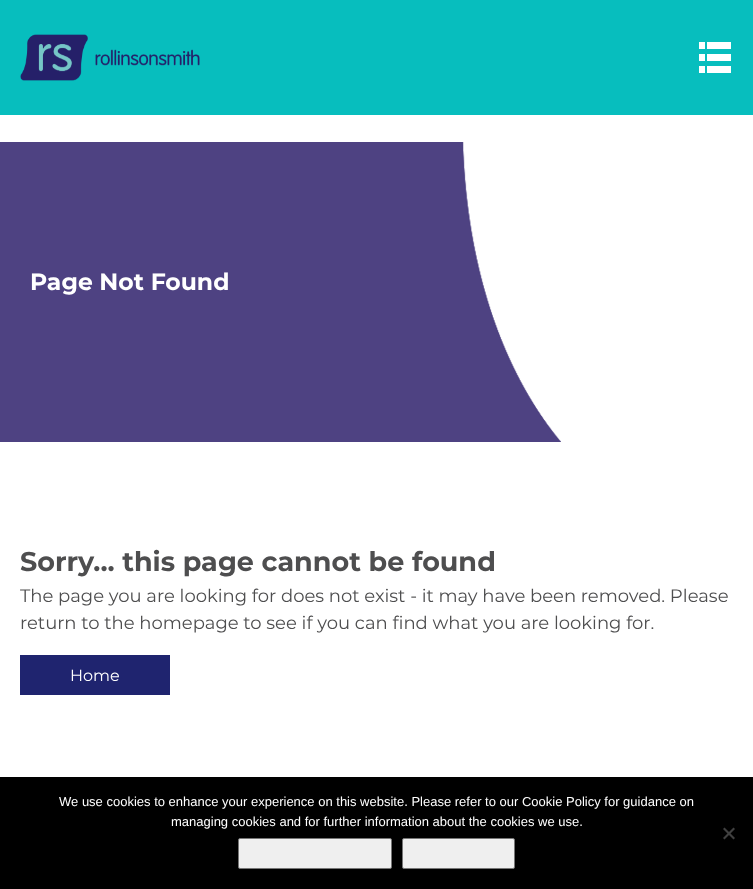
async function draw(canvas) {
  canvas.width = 753;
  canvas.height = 889;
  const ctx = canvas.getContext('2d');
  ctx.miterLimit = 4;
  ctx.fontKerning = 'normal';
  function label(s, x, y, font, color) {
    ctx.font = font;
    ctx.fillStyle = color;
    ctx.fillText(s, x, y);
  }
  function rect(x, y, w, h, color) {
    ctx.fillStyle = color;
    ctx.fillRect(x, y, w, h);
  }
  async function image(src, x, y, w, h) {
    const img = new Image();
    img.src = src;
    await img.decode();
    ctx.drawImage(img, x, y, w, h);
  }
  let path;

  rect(0, 0, 753, 889, '#fff');
  rect(0, 0, 753, 115, '#07bebe');
  await image('assets/img1.png', 20, 34, 180, 47);
  await image('assets/img2.png', 699, 42, 32, 31);
  await image('assets/img3.png', 0, 142, 561, 300);
  label('Page Not Found', 30, 290, 'bold 23.5px Montserrat', '#fff');
  label('Sorry... this page cannot be found', 20, 571, 'bold 27px Montserrat', '#4e4e4f');
  label('The page you are looking for does not exist - it may have been removed. Please', 20, 602, '18px Montserrat', '#4e4e4f');
  label('return to the homepage to see if you can find what you are looking for.', 20, 629, '18px Montserrat', '#4e4e4f');
  rect(20, 655, 150, 40, '#1f246f');
  label('Home', 70, 681, '16px Montserrat', '#fff');
  rect(0, 777, 753, 112, '#000');
  label('We use cookies to enhance your experience on this website. Please refer to our Cookie Policy for guidance on', 59, 806, '13px Liberation Sans', '#fff');
  label('managing cookies and for further information about the cookies we use.', 171, 826, '13px Liberation Sans', '#fff');
  ctx.fillStyle = '#404040';
  path = new Path2D('M733.5 827.5L735 829L724.5 839.5L723 838Z');
  ctx.fill(path);
  path = new Path2D('M723 829L724.5 827.5L735 838L733.5 839.5Z');
  ctx.fill(path);
  ctx.fillStyle = '#efefef';
  ctx.beginPath();
  ctx.roundRect(238.5, 838.5, 153, 30, 1.5);
  ctx.fill();
  ctx.strokeStyle = '#767676';
  ctx.stroke();
  ctx.beginPath();
  ctx.roundRect(402.5, 838.5, 112, 30, 1.5);
  ctx.fill();
  ctx.stroke();
}

draw(document.querySelector('canvas'));
